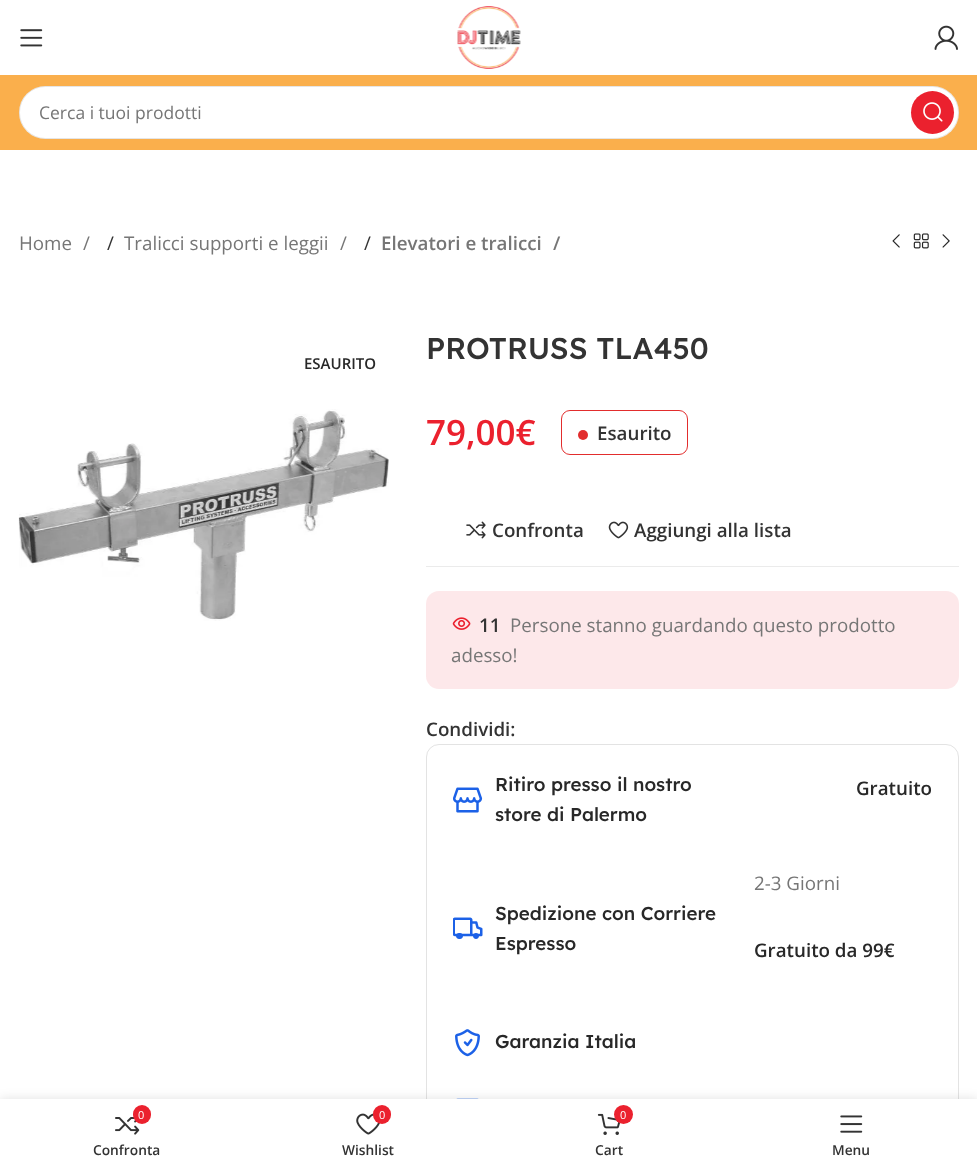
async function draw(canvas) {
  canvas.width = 977;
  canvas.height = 1167;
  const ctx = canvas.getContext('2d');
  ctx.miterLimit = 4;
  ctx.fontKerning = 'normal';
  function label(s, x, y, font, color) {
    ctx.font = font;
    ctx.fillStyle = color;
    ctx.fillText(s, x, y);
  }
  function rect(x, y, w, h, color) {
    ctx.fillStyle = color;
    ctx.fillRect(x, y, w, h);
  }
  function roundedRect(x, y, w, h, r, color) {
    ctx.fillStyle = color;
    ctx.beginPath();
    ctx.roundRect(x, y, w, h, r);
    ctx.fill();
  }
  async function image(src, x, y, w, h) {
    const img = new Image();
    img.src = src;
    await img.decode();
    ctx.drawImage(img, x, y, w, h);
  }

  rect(0, 0, 977, 1167, '#fff');
  await image('assets/img1.png', 20, 29, 23, 18);
  await image('assets/img2.png', 457, 6, 64, 63);
  await image('assets/img3.png', 934, 25, 24, 25);
  rect(0, 75, 977, 75, '#faaf4c');
  roundedRect(19, 86, 940, 53, 26.5, '#fff');
  ctx.beginPath();
  ctx.roundRect(19.5, 86.5, 939, 52, 26);
  ctx.strokeStyle = '#0000001a';
  ctx.stroke();
  label('Cerca i tuoi prodotti', 39, 119, '17.5px Open Sans', '#767676');
  ctx.fillStyle = '#eb212e';
  ctx.beginPath();
  ctx.arc(932.5, 112.5, 21.5, 0, 2 * Math.PI);
  ctx.fill();
  await image('assets/img4.png', 923, 102, 20, 20);
  label('Home', 19, 250, '18.75px Open Sans', '#767676');
  label('/', 83, 250, '18.75px Open Sans', '#767676');
  label('/', 107, 250, '18.75px Open Sans', '#333');
  label('Tralicci supporti e leggii', 124, 250, '18.75px Open Sans', '#767676');
  label('/', 340, 250, '18.75px Open Sans', '#767676');
  label('/', 364, 250, '18.75px Open Sans', '#333');
  label('Elevatori e tralicci', 381, 250, '600 18.75px Open Sans', '#767676');
  label('/', 553, 250, '600 18.75px Open Sans', '#767676');
  await image('assets/img5.png', 892, 234, 8, 14);
  await image('assets/img6.png', 913, 233, 16, 16);
  await image('assets/img7.png', 942, 234, 8, 14);
  label('ESAURITO', 304, 369, '600 15px Open Sans', '#282828');
  await image('assets/img8.png', 18, 409, 371, 212);
  label('PROTRUSS TLA450', 426, 359, '500 30px Lexend Deca', '#333');
  label('79,00€', 426, 445, '600 35px Open Sans', '#eb212e');
  ctx.beginPath();
  ctx.roundRect(561.5, 410.5, 126, 44, 8.5);
  ctx.strokeStyle = '#e22d2d';
  ctx.stroke();
  ctx.fillStyle = '#e22d2d';
  ctx.beginPath();
  ctx.arc(583, 435, 5, 0, 2 * Math.PI);
  ctx.fill();
  label('Esaurito', 597, 440, '600 18.75px Open Sans', '#333');
  await image('assets/img9.png', 466, 521, 20, 18);
  label('Confronta', 492, 537, '600 18.75px Open Sans', '#333');
  await image('assets/img10.png', 608, 521, 21, 18);
  label('Aggiungi alla lista', 634, 537, '600 18.75px Open Sans', '#333');
  rect(426, 566, 533, 1, '#ebebeb');
  await image('assets/img11.png', 452, 617, 19, 13);
  roundedRect(426, 591, 533, 98, 13, '#eb212e1a');
  label('11', 479, 632, '600 18.75px Open Sans', '#333');
  label('Persone stanno guardando questo prodotto', 510, 632, '18.75px Open Sans', '#767676');
  label('adesso!', 451, 662, '18.75px Open Sans', '#767676');
  label('Condividi:', 426, 736, '600 18.75px Open Sans', '#333');
  ctx.beginPath();
  ctx.roundRect(426.5, 744.5, 532, 419, 12.5);
  ctx.strokeStyle = '#e3e3e3';
  ctx.stroke();
  await image('assets/img12.png', 453, 787, 30, 26);
  label('Ritiro presso il nostro', 495, 791, '500 18.75px Lexend Deca', '#282828');
  label('store di Palermo', 495, 821, '500 18.75px Lexend Deca', '#282828');
  label('Gratuito', 856, 795, '600 18.75px Open Sans', '#282828');
  await image('assets/img13.png', 453, 917, 30, 22);
  label('Spedizione con Corriere', 495, 920, '500 18.75px Lexend Deca', '#282828');
  label('Espresso', 495, 950, '500 18.75px Lexend Deca', '#282828');
  label('2-3 Giorni', 754, 890, '18.75px Open Sans', '#767676');
  label('Gratuito da 99€', 754, 957, '600 18.75px Open Sans', '#282828');
  await image('assets/img14.png', 455, 1029, 25, 28);
  label('Garanzia Italia', 495, 1048, '500 18.75px Lexend Deca', '#282828');
  await image('assets/img15.png', 456, 1098, 23, 1);
  ctx.fillStyle = '#0000001f';
  ctx.filter = 'blur(5.5px)';
  ctx.beginPath();
  ctx.rect(0, 1099, 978, 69);
  ctx.fill();
  ctx.filter = 'none';
  rect(0, 1099, 977, 68, '#fff');
  await image('assets/img16.png', 115, 1117, 25, 18);
  roundedRect(133, 1105, 18, 19, 9, '#eb212e');
  label('0', 138, 1119, '11px Open Sans', '#fff');
  label('Confronta', 93, 1155, '600 13.75px Open Sans', '#333');
  await image('assets/img17.png', 356, 1113, 24, 22);
  roundedRect(373, 1105, 18, 19, 9, '#eb212e');
  label('0', 379, 1119, '11px Open Sans', '#fff');
  label('Wishlist', 342, 1155, '600 13.75px Open Sans', '#333');
  await image('assets/img18.png', 597, 1113, 23, 22);
  ctx.fillStyle = '#eb212e';
  ctx.beginPath();
  ctx.arc(623.5, 1114.5, 9.5, 0, 2 * Math.PI);
  ctx.fill();
  label('0', 620, 1119, '11px Open Sans', '#fff');
  label('Cart', 595, 1155, '600 13.75px Open Sans', '#333');
  await image('assets/img19.png', 840, 1115, 23, 18);
  label('Menu', 832, 1155, '600 13.75px Open Sans', '#333');
}

draw(document.querySelector('canvas'));
